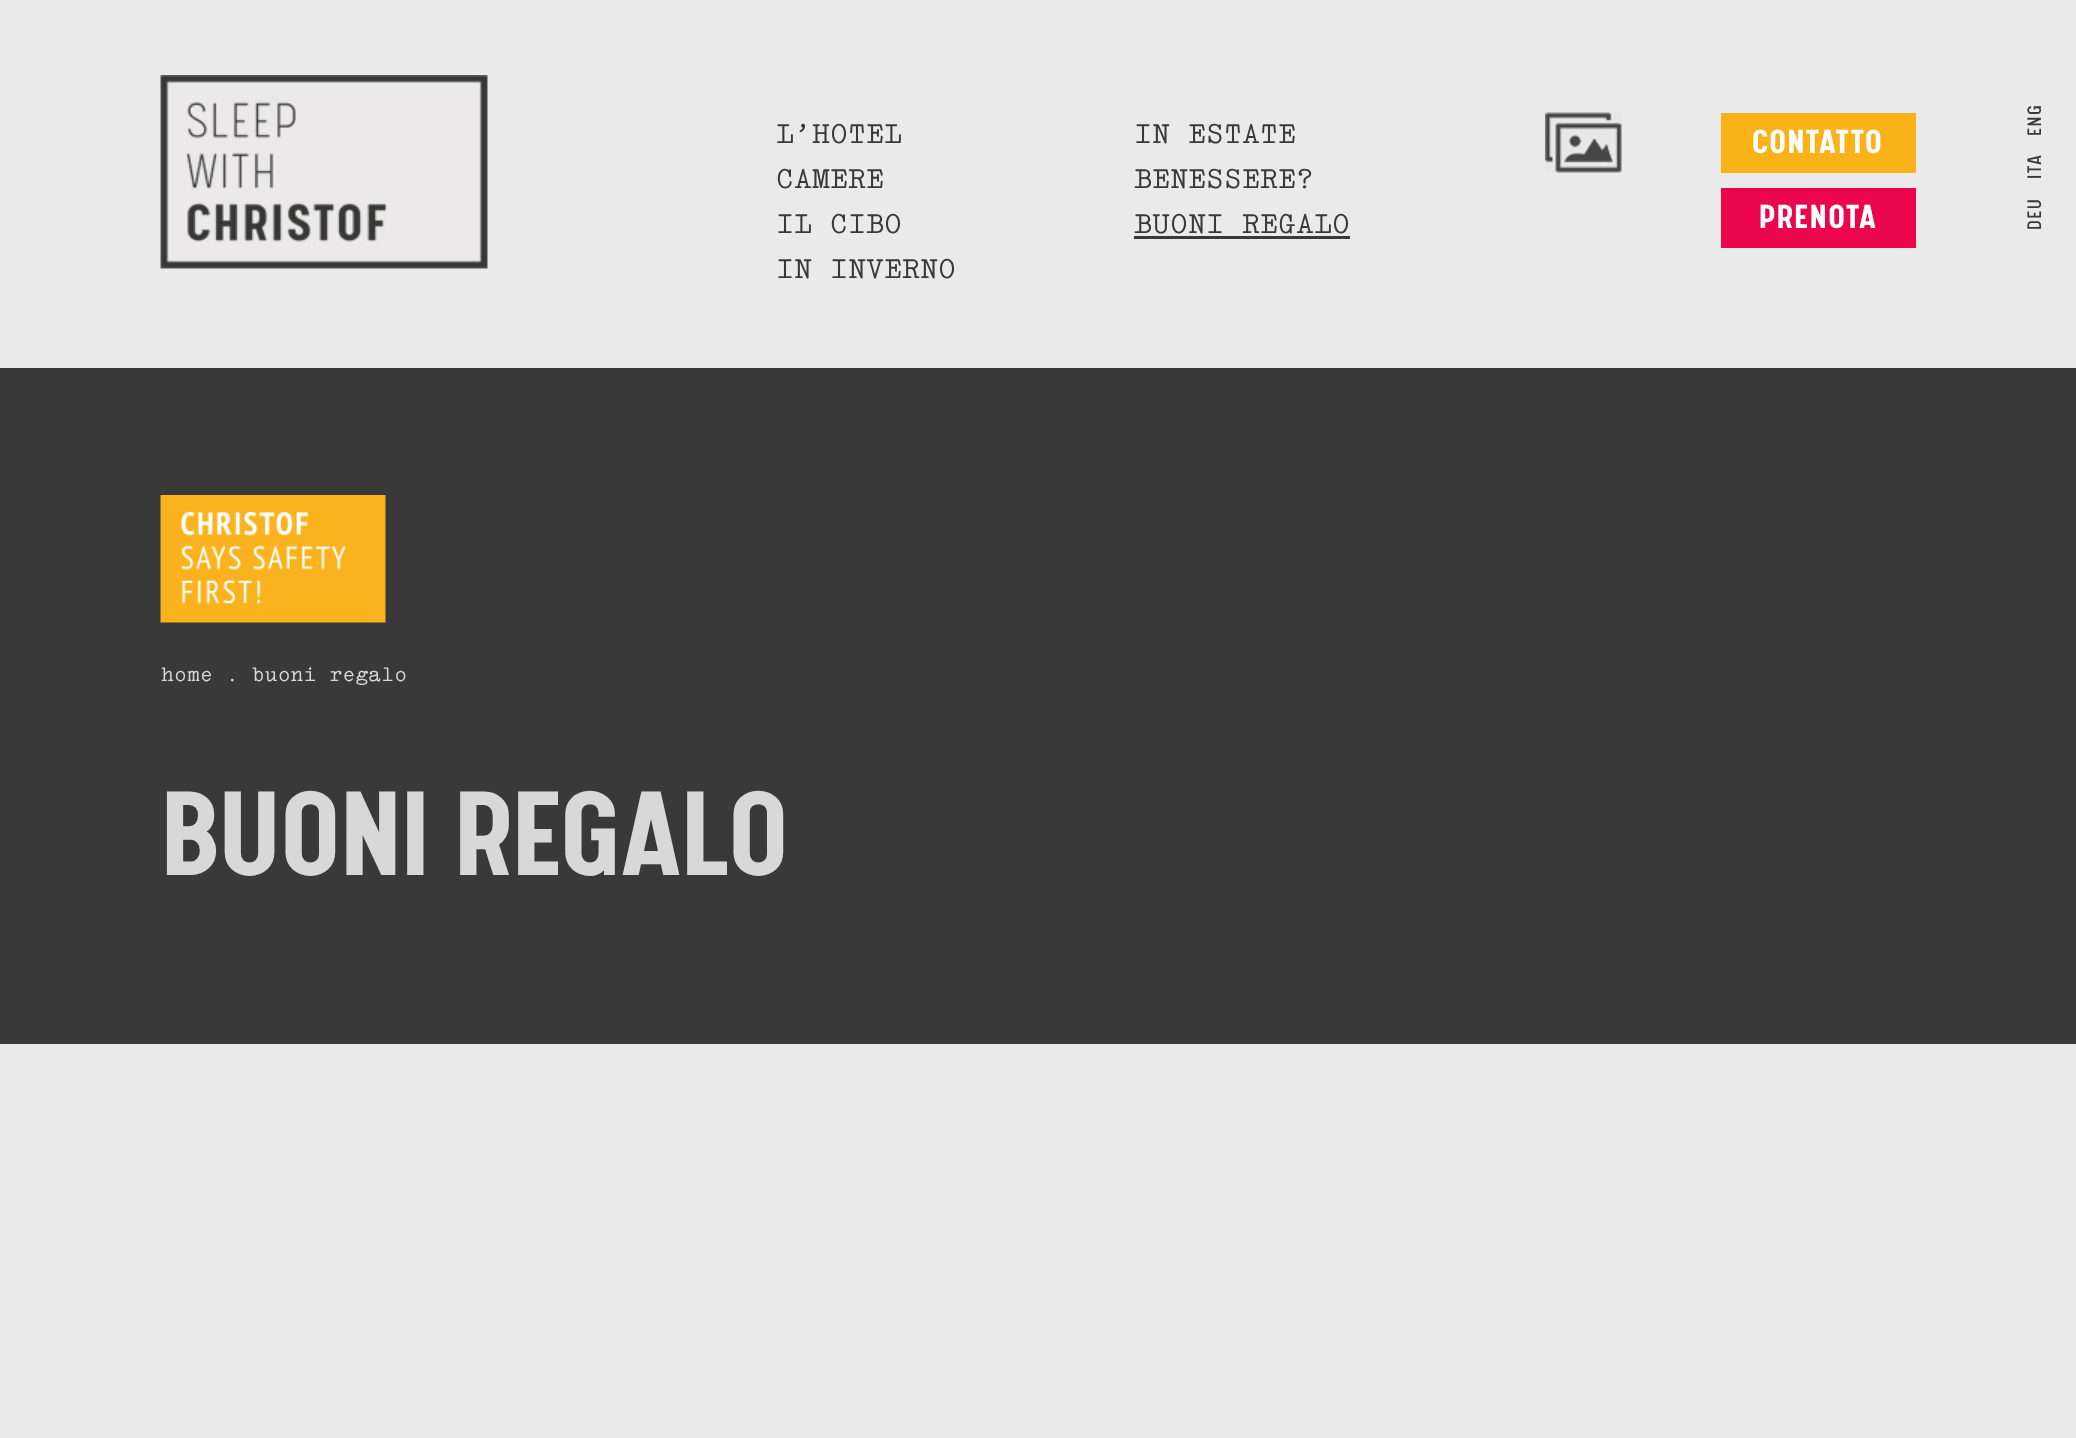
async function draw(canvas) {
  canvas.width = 2076;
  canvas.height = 1438;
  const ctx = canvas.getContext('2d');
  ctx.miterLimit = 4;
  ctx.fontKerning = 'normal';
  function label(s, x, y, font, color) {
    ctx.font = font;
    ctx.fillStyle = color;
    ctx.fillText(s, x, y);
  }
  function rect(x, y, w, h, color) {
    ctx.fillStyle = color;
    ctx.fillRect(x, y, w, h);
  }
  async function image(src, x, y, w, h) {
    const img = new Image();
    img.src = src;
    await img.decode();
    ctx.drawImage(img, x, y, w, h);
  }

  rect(0, 0, 2076, 1438, '#ebeaea');
  await image('assets/img1.png', 160, 75, 328, 194);
  label('L’HOTEL', 776, 143, '37.5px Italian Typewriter', '#393939');
  label('IN ESTATE', 1134, 143, '37.5px Italian Typewriter', '#393939');
  label('CAMERE', 776, 188, '37.5px Italian Typewriter', '#393939');
  label('BENESSERE?', 1134, 188, '37.5px Italian Typewriter', '#393939');
  label('IL CIBO', 776, 233, '37.5px Italian Typewriter', '#393939');
  label('BUONI REGALO', 1134, 233, '37.5px Italian Typewriter', '#393939');
  rect(1134, 236, 216, 3, '#393939');
  label('IN INVERNO', 776, 278, '37.5px Italian Typewriter', '#393939');
  await image('assets/img2.png', 1545, 112, 77, 61);
  rect(1721, 113, 195, 60, '#fab219');
  ctx.letterSpacing = '1.5px';
  label('CONTATTO', 1752, 153, 'bold 37.5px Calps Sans', '#fff');
  rect(1721, 188, 195, 60, '#eb054c');
  label('PRENOTA', 1759, 228, 'bold 37.5px Calps Sans', '#fff');
  ctx.font = '22px Calps Sans';
  ctx.fillStyle = '#393939';
  ctx.save();
  ctx.translate(2041, 136);
  ctx.rotate(-90 * Math.PI / 180);
  ctx.fillText('ENG', 0, 0);
  ctx.restore();
  ctx.save();
  ctx.translate(2041, 179);
  ctx.rotate(-90 * Math.PI / 180);
  ctx.fillText('ITA', 0, 0);
  ctx.restore();
  ctx.save();
  ctx.translate(2041, 230);
  ctx.rotate(-90 * Math.PI / 180);
  ctx.fillText('DEU', 0, 0);
  ctx.restore();
  rect(0, 368, 2076, 676, '#393939');
  await image('assets/img3.png', 160, 495, 226, 128);
  ctx.letterSpacing = '0px';
  label('home . buoni regalo', 161, 681, '27px Italian Typewriter', '#d8d8d8');
  label('BUONI REGALO', 161, 875, 'bold 135px Calps Sans', '#d8d8d8');
}

draw(document.querySelector('canvas'));
